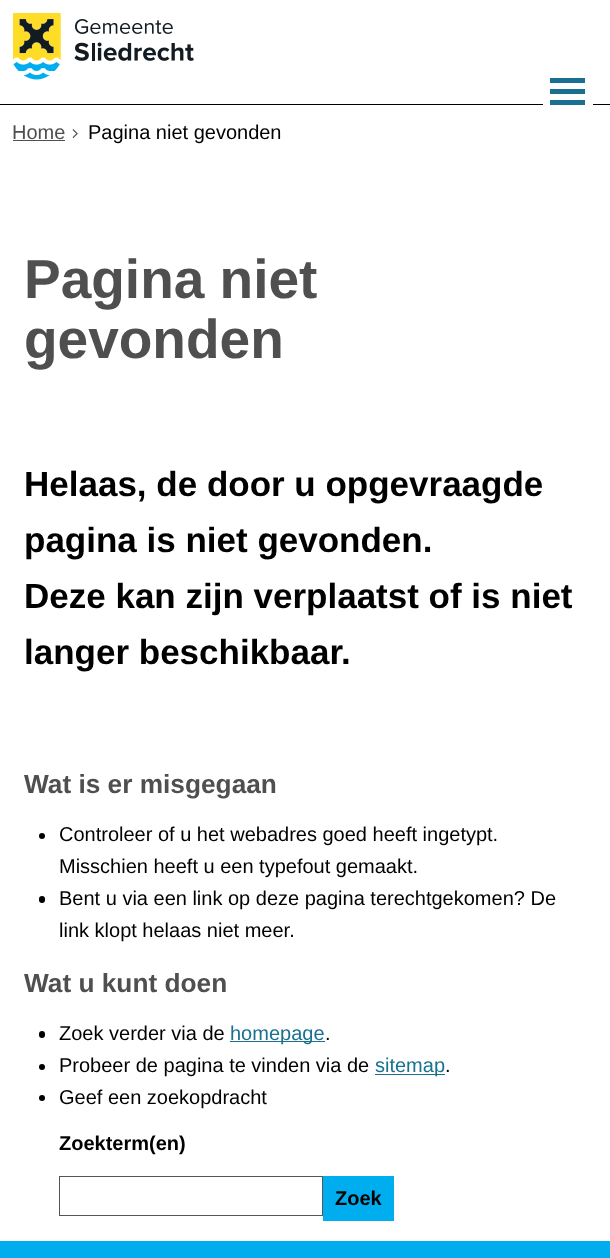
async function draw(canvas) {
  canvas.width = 610;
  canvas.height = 1258;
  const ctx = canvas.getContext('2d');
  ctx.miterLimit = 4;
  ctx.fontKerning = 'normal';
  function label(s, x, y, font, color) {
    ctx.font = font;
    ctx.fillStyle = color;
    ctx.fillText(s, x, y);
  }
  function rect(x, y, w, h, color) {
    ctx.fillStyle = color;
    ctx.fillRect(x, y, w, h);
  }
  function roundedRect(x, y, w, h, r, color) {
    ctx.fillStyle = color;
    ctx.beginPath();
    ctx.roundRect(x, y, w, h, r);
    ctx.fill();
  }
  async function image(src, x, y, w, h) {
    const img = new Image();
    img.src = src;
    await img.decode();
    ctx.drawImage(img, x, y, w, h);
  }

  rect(0, 0, 610, 1258, '#fff');
  rect(0, 104, 610, 1, '#000');
  await image('assets/img1.png', 13, 13, 181, 67);
  rect(543, 104, 50, 1, '#fff');
  rect(550, 100, 35, 5, '#197090');
  rect(550, 89, 35, 5, '#197090');
  rect(550, 78, 35, 5, '#197090');
  label('Home', 12, 139, '20px Liberation Sans', '#4f4f4f');
  rect(13, 140, 52, 1, '#4f4f4f');
  await image('assets/img2.png', 72, 129, 6, 9);
  label('Pagina niet gevonden', 88, 139, '20px Liberation Sans', '#000');
  label('Pagina niet', 24, 298, 'bold 55px Liberation Sans', '#4f4f4f');
  label('gevonden', 24, 358, 'bold 55px Liberation Sans', '#4f4f4f');
  label('Helaas, de door u opgevraagde', 24, 496, 'bold 35px Liberation Sans', '#000');
  label('pagina is niet gevonden.', 24, 552, 'bold 35px Liberation Sans', '#000');
  label('Deze kan zijn verplaatst of is niet', 24, 608, 'bold 35px Liberation Sans', '#000');
  label('langer beschikbaar.', 24, 664, 'bold 35px Liberation Sans', '#000');
  label('Wat is er misgegaan', 24, 793, 'bold 26.25px Liberation Sans', '#4f4f4f');
  ctx.fillStyle = '#000';
  ctx.beginPath();
  ctx.arc(42, 836, 3, 0, 2 * Math.PI);
  ctx.fill();
  label('Controleer of u het webadres goed heeft ingetypt.', 59, 841, '20px Liberation Sans', '#000');
  label('Misschien heeft u een typefout gemaakt.', 59, 873, '20px Liberation Sans', '#000');
  roundedRect(39, 896, 6, 7, 3, '#000');
  label('Bent u via een link op deze pagina terechtgekomen? De', 59, 905, '20px Liberation Sans', '#000');
  label('link klopt helaas niet meer.', 59, 937, '20px Liberation Sans', '#000');
  label('Wat u kunt doen', 24, 992, 'bold 26.25px Liberation Sans', '#4f4f4f');
  roundedRect(39, 1031, 6, 7, 3, '#000');
  label('Zoek verder via de', 59, 1040, '20px Liberation Sans', '#000');
  rect(230, 1041, 95, 1, '#197090');
  label('homepage', 230, 1040, '20px Liberation Sans', '#197090');
  label('.', 325, 1040, '20px Liberation Sans', '#000');
  ctx.beginPath();
  ctx.arc(42, 1067, 3, 0, 2 * Math.PI);
  ctx.fill();
  label('Probeer de pagina te vinden via de', 59, 1072, '20px Liberation Sans', '#000');
  rect(375, 1074, 70, 1, '#197090');
  label('sitemap', 375, 1072, '20px Liberation Sans', '#197090');
  label('.', 445, 1072, '20px Liberation Sans', '#000');
  ctx.beginPath();
  ctx.arc(42, 1098, 3, 0, 2 * Math.PI);
  ctx.fill();
  label('Geef een zoekopdracht', 59, 1104, '20px Liberation Sans', '#000');
  label('Zoekterm(en)', 59, 1150, 'bold 20px Liberation Sans', '#000');
  ctx.strokeStyle = '#555';
  ctx.strokeRect(59.5, 1176.5, 263, 39);
  rect(323, 1176, 71, 45, '#00adee');
  label('Zoek', 335, 1205, 'bold 20px Liberation Sans', '#000');
  rect(0, 1241, 610, 17, '#00adee');
}

draw(document.querySelector('canvas'));
